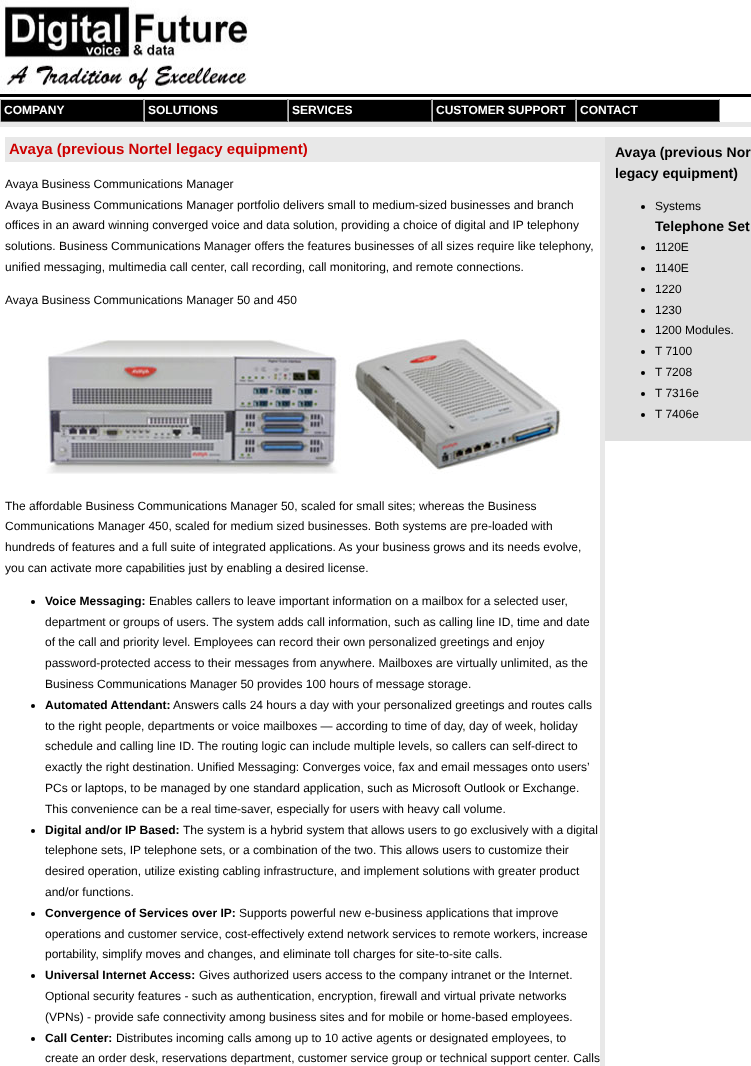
async function draw(canvas) {
  canvas.width = 751;
  canvas.height = 1066;
  const ctx = canvas.getContext('2d');
  ctx.miterLimit = 4;
  ctx.fontKerning = 'normal';
  function label(s, x, y, font, color) {
    ctx.font = font;
    ctx.fillStyle = color;
    ctx.fillText(s, x, y);
  }
  function rect(x, y, w, h, color) {
    ctx.fillStyle = color;
    ctx.fillRect(x, y, w, h);
  }
  async function image(src, x, y, w, h) {
    const img = new Image();
    img.src = src;
    await img.decode();
    ctx.drawImage(img, x, y, w, h);
  }

  rect(0, 0, 751, 1066, '#fff');
  await image('assets/img1.png', 0, 0, 248, 92);
  rect(0, 94, 751, 3, '#000');
  rect(1, 100, 142, 21, '#000');
  rect(0, 99, 720, 1, '#ccc');
  rect(143, 99, 1, 23, '#888');
  rect(0, 121, 144, 1, '#555');
  rect(0, 99, 1, 23, '#bbb');
  label('COMPANY', 4, 114, 'bold 12px Liberation Sans', '#fff');
  rect(145, 100, 142, 21, '#000');
  rect(287, 99, 1, 23, '#888');
  rect(144, 121, 144, 1, '#555');
  rect(144, 99, 1, 23, '#bbb');
  label('SOLUTIONS', 148, 114, 'bold 12px Liberation Sans', '#fff');
  rect(289, 100, 142, 21, '#000');
  rect(431, 99, 1, 23, '#888');
  rect(288, 121, 144, 1, '#555');
  rect(288, 99, 1, 23, '#bbb');
  label('SERVICES', 292, 114, 'bold 12px Liberation Sans', '#fff');
  rect(433, 100, 142, 21, '#000');
  rect(575, 99, 1, 23, '#888');
  rect(432, 121, 144, 1, '#555');
  rect(432, 99, 1, 23, '#bbb');
  label('CUSTOMER SUPPORT', 436, 114, 'bold 12px Liberation Sans', '#fff');
  rect(577, 100, 142, 21, '#000');
  rect(719, 99, 1, 23, '#888');
  rect(576, 121, 144, 1, '#555');
  rect(576, 99, 1, 23, '#bbb');
  label('CONTACT', 580, 114, 'bold 12px Liberation Sans', '#fff');
  rect(0, 122, 751, 5, '#e8e8e8');
  rect(600, 137, 5, 929, '#e8e8e8');
  rect(5, 137, 595, 25, '#e8e8e8');
  label('Avaya (previous Nortel legacy equipment)', 9, 154, 'bold 15px Liberation Sans', '#cd0000');
  label('Avaya Business Communications Manager', 5, 188, '12px Liberation Sans', '#000');
  label('Avaya Business Communications Manager portfolio delivers small to medium-sized businesses and branch', 5, 209, '12px Liberation Sans', '#000');
  label('offices in an award winning converged voice and data solution, providing a choice of digital and IP telephony', 5, 229, '12px Liberation Sans', '#000');
  label('solutions. Business Communications Manager offers the features businesses of all sizes require like telephony,', 5, 250, '12px Liberation Sans', '#000');
  label('unified messaging, multimedia call center, call recording, call monitoring, and remote connections.', 5, 271, '12px Liberation Sans', '#000');
  label('Avaya Business Communications Manager 50 and 450', 5, 304, '12px Liberation Sans', '#000');
  await image('assets/img2.png', 45, 339, 520, 135);
  label('The affordable Business Communications Manager 50, scaled for small sites; whereas the Business', 5, 510, '12px Liberation Sans', '#000');
  label('Communications Manager 450, scaled for medium sized businesses. Both systems are pre-loaded with', 5, 530, '12px Liberation Sans', '#000');
  label('hundreds of features and a full suite of integrated applications. As your business grows and its needs evolve,', 5, 551, '12px Liberation Sans', '#000');
  label('you can activate more capabilities just by enabling a desired license.', 5, 572, '12px Liberation Sans', '#000');
  ctx.beginPath();
  ctx.arc(33, 602, 2, 0, 2 * Math.PI);
  ctx.fill();
  label('Voice Messaging:', 45, 605, 'bold 12px Liberation Sans', '#000');
  label('Enables callers to leave important information on a mailbox for a selected user,', 149, 605, '12px Liberation Sans', '#000');
  label('department or groups of users. The system adds call information, such as calling line ID, time and date', 45, 626, '12px Liberation Sans', '#000');
  label('of the call and priority level. Employees can record their own personalized greetings and enjoy', 45, 646, '12px Liberation Sans', '#000');
  label('password-protected access to their messages from anywhere. Mailboxes are virtually unlimited, as the', 45, 667, '12px Liberation Sans', '#000');
  label('Business Communications Manager 50 provides 100 hours of message storage.', 45, 688, '12px Liberation Sans', '#000');
  ctx.beginPath();
  ctx.arc(33, 706, 2, 0, 2 * Math.PI);
  ctx.fill();
  label('Automated Attendant:', 45, 709, 'bold 12px Liberation Sans', '#000');
  label('Answers calls 24 hours a day with your personalized greetings and routes calls', 173, 709, '12px Liberation Sans', '#000');
  label('to the right people, departments or voice mailboxes — according to time of day, day of week, holiday', 45, 730, '12px Liberation Sans', '#000');
  label('schedule and calling line ID. The routing logic can include multiple levels, so callers can self-direct to', 45, 750, '12px Liberation Sans', '#000');
  label('exactly the right destination. Unified Messaging: Converges voice, fax and', 45, 771, '12px Liberation Sans', '#000');
  label('email messages onto users’', 441, 771, '12px Liberation Sans', '#000');
  label('PCs or laptops, to be managed by one standard application, such as Microsoft Outlook or Exchange.', 45, 792, '12px Liberation Sans', '#000');
  label('This convenience can be a real time-saver, especially for users with heavy call volume.', 45, 813, '12px Liberation Sans', '#000');
  ctx.beginPath();
  ctx.arc(33, 831, 2, 0, 2 * Math.PI);
  ctx.fill();
  label('Digital and/or IP Based:', 45, 834, 'bold 12px Liberation Sans', '#000');
  label('The system is a hybrid system that allows users to go exclusively with a digital', 183, 834, '12px Liberation Sans', '#000');
  label('telephone sets, IP telephone sets, or a combination of the two. This allows users to customize their', 45, 854, '12px Liberation Sans', '#000');
  label('desired operation, utilize existing cabling infrastructure, and implement solutions with greater product', 45, 875, '12px Liberation Sans', '#000');
  label('and/or functions.', 45, 896, '12px Liberation Sans', '#000');
  ctx.beginPath();
  ctx.arc(33, 914, 2, 0, 2 * Math.PI);
  ctx.fill();
  label('Convergence of Services over IP:', 45, 917, 'bold 12px Liberation Sans', '#000');
  label('Supports powerful new e-business applications that improve', 239, 917, '12px Liberation Sans', '#000');
  label('operations and customer service, cost-effectively extend network services to remote workers, increase', 45, 938, '12px Liberation Sans', '#000');
  label('portability, simplify moves and changes, and eliminate toll charges for site-to-site calls.', 45, 958, '12px Liberation Sans', '#000');
  ctx.beginPath();
  ctx.arc(33, 976, 2, 0, 2 * Math.PI);
  ctx.fill();
  label('Universal Internet Access:', 45, 979, 'bold 12px Liberation Sans', '#000');
  label('Gives authorized users access to the company intranet or the Internet.', 199, 979, '12px Liberation Sans', '#000');
  label('Optional security features - such as authentication, encryption, firewall and virtual private networks', 45, 1000, '12px Liberation Sans', '#000');
  label('(VPNs) - provide safe connectivity among business sites and for mobile or home-based employees.', 45, 1021, '12px Liberation Sans', '#000');
  ctx.beginPath();
  ctx.arc(33, 1039, 2, 0, 2 * Math.PI);
  ctx.fill();
  label('Call Center:', 45, 1042, 'bold 12px Liberation Sans', '#000');
  label('Distributes incoming calls among up to 10 active agents or designated employees, to', 116, 1042, '12px Liberation Sans', '#000');
  label('create an order desk, reservations department, customer service group or technical support center. Calls', 45, 1062, '12px Liberation Sans', '#000');
  rect(605, 137, 146, 304, '#dfdfdf');
  label('Avaya (previous Nor', 615, 157, 'bold 14px Liberation Sans', '#000');
  label('legacy equipment)', 615, 178, 'bold 14px Liberation Sans', '#000');
  ctx.beginPath();
  ctx.arc(643, 207, 2, 0, 2 * Math.PI);
  ctx.fill();
  label('Systems', 655, 210, '12px Liberation Sans', '#000');
  label('Telephone Set', 655, 231, 'bold 14px Liberation Sans', '#000');
  ctx.beginPath();
  ctx.arc(643, 248, 2, 0, 2 * Math.PI);
  ctx.fill();
  label('1120E', 655, 251, '12px Liberation Sans', '#000');
  ctx.beginPath();
  ctx.arc(643, 269, 2, 0, 2 * Math.PI);
  ctx.fill();
  label('1140E', 655, 272, '12px Liberation Sans', '#000');
  ctx.beginPath();
  ctx.arc(643, 290, 2, 0, 2 * Math.PI);
  ctx.fill();
  label('1220', 655, 293, '12px Liberation Sans', '#000');
  ctx.beginPath();
  ctx.arc(643, 311, 2, 0, 2 * Math.PI);
  ctx.fill();
  label('1230', 655, 314, '12px Liberation Sans', '#000');
  ctx.beginPath();
  ctx.arc(643, 331, 2, 0, 2 * Math.PI);
  ctx.fill();
  label('1200 Modules.', 655, 334, '12px Liberation Sans', '#000');
  ctx.beginPath();
  ctx.arc(643, 352, 2, 0, 2 * Math.PI);
  ctx.fill();
  label('T 7100', 655, 355, '12px Liberation Sans', '#000');
  ctx.beginPath();
  ctx.arc(643, 373, 2, 0, 2 * Math.PI);
  ctx.fill();
  label('T 7208', 655, 376, '12px Liberation Sans', '#000');
  ctx.beginPath();
  ctx.arc(643, 394, 2, 0, 2 * Math.PI);
  ctx.fill();
  label('T 7316e', 655, 397, '12px Liberation Sans', '#000');
  ctx.beginPath();
  ctx.arc(643, 415, 2, 0, 2 * Math.PI);
  ctx.fill();
  label('T 7406e', 655, 418, '12px Liberation Sans', '#000');
}

draw(document.querySelector('canvas'));
